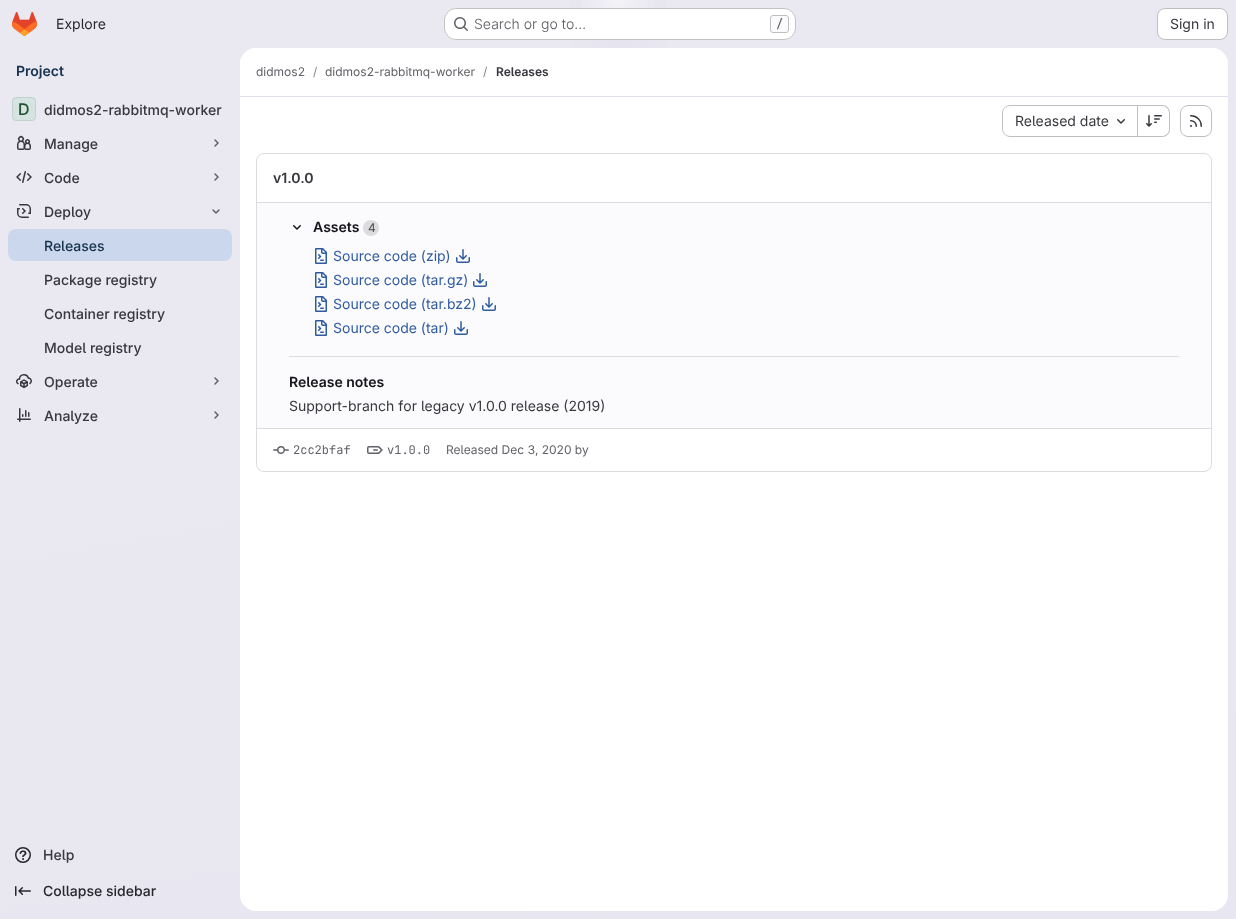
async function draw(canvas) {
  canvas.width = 1236;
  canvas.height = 919;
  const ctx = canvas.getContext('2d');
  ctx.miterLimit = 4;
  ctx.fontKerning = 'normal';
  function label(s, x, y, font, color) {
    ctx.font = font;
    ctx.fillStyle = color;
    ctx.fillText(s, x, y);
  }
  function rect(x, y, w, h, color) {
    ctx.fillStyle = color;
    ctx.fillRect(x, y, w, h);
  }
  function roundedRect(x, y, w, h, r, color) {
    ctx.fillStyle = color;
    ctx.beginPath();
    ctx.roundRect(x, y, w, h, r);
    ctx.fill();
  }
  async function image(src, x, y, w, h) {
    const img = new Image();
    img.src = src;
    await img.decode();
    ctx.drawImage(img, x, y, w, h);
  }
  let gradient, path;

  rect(0, 0, 1236, 919, '#fff');
  gradient = ctx.createLinearGradient(715, 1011, 521, -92);
  gradient.addColorStop(0, '#e8e6f0');
  gradient.addColorStop(0.7, '#eae9f2');
  ctx.fillStyle = gradient;
  ctx.fillRect(0, 0, 1236, 919);
  gradient = ctx.createRadialGradient(618, 0, 0, 618, 0, 618);
  gradient.addColorStop(0, '#e4e2ed');
  gradient.addColorStop(0.11, '#e4e2ed00');
  ctx.fillStyle = gradient;
  ctx.beginPath();
  ctx.rect(569, 0, 98, 48);
  ctx.save();
  ctx.clip();
  ctx.scale(1, 919 / 618);
  ctx.fillRect(0, 0, 1236, 618);
  ctx.restore();
  gradient = ctx.createRadialGradient(618, 0, 0, 618, 0, 618);
  gradient.addColorStop(0, '#e4e2ec');
  gradient.addColorStop(0.08, '#e4e2ec00');
  ctx.fillStyle = gradient;
  ctx.beginPath();
  ctx.rect(606, 4, 24, 15);
  ctx.save();
  ctx.clip();
  ctx.scale(1, 919 / 618);
  ctx.fillRect(0, 0, 1236, 618);
  ctx.restore();
  gradient = ctx.createRadialGradient(618, 0, 0, 618, 0, 1107);
  gradient.addColorStop(0, '#ffffff99');
  gradient.addColorStop(0.04, '#ffffff00');
  ctx.fillStyle = gradient;
  ctx.fillRect(581, 0, 74, 38);
  await image('assets/img1.png', 12, 12, 25, 24);
  label('Explore', 56, 29, '14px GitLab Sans', '#28272d');
  roundedRect(444, 8, 352, 32, 12, '#fff');
  ctx.beginPath();
  ctx.roundRect(444.5, 8.5, 351, 31, 11.5);
  ctx.strokeStyle = '#0505063d';
  ctx.stroke();
  await image('assets/img2.png', 454, 17, 14, 14);
  label('Search or go to…', 474, 29, '300 14px GitLab Sans', '#626168');
  ctx.fillStyle = '#fbfafd';
  ctx.beginPath();
  ctx.roundRect(770.5, 15.5, 18, 17, 2.5);
  ctx.fill();
  ctx.strokeStyle = '#bfbfc3';
  ctx.stroke();
  label('/', 776, 28, '500 12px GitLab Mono', '#626168');
  ctx.fillStyle = '#fff';
  ctx.beginPath();
  ctx.roundRect(1157.5, 8.5, 70, 31, 7.5);
  ctx.fill();
  ctx.stroke();
  label('Sign in', 1170, 29, '14px GitLab Sans', '#3a383f');
  label('Project', 16, 76, '600 14px GitLab Sans', '#18334e');
  roundedRect(12, 97, 24, 24, 4, '#d5e4e0');
  ctx.beginPath();
  ctx.roundRect(12.5, 97.5, 23, 23, 3.5);
  ctx.strokeStyle = '#05050614';
  ctx.stroke();
  label('D', 18, 115, '500 16px "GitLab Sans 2"', '#225131');
  label('didmos2-rabbitmq-worker', 44, 115, '500 14px GitLab Sans', '#3a383f');
  await image('assets/img3.png', 17, 135, 14, 15);
  label('Manage', 44, 149, '500 14px GitLab Sans', '#3a383f');
  path = new Path2D('M215 140L218 143L215 146');
  ctx.strokeStyle = '#626168';
  ctx.lineWidth = 1.5;
  ctx.lineCap = 'round';
  ctx.lineJoin = 'round';
  ctx.stroke(path);
  await image('assets/img4.png', 16, 171, 16, 12);
  label('Code', 44, 183, '500 14px GitLab Sans', '#3a383f');
  path = new Path2D('M215 174L218 177L215 180');
  ctx.stroke(path);
  await image('assets/img5.png', 17, 204, 14, 14);
  label('Deploy', 44, 217, '500 14px GitLab Sans', '#3a383f');
  path = new Path2D('M219 210L216 213L213 210');
  ctx.stroke(path);
  roundedRect(8, 229, 224, 32, 8, '#cad7ec');
  label('Releases', 44, 251, '500 14px GitLab Sans', '#18334e');
  label('Package registry', 44, 285, '500 14px GitLab Sans', '#3a383f');
  label('Container registry', 44, 319, '500 14px GitLab Sans', '#3a383f');
  label('Model registry', 44, 353, '500 14px GitLab Sans', '#3a383f');
  await image('assets/img6.png', 16, 374, 16, 15);
  label('Operate', 44, 387, '500 14px GitLab Sans', '#3a383f');
  path = new Path2D('M215 378L218 381L215 384');
  ctx.stroke(path);
  await image('assets/img7.png', 17, 408, 14, 14);
  label('Analyze', 44, 421, '500 14px GitLab Sans', '#3a383f');
  path = new Path2D('M215 412L218 415L215 418');
  ctx.stroke(path);
  await image('assets/img8.png', 15, 847, 16, 16);
  label('Help', 43, 860, '500 14px GitLab Sans', '#3a383f');
  await image('assets/img9.png', 15, 886, 16, 10);
  label('Collapse sidebar', 43, 896, '500 14px GitLab Sans', '#28272d');
  roundedRect(240, 48, 988, 863, 16, '#fff');
  ctx.beginPath();
  ctx.roundRect(240, 48, 988, 49, [16, 16, 0, 0]);
  ctx.fill();
  rect(240, 96, 988, 1, '#e1dfec');
  label('didmos2', 256, 76, '12px GitLab Sans', '#626168');
  label('/', 313, 76, '12px GitLab Sans', '#89888d');
  label('didmos2-rabbitmq-worker', 325, 76, '12px GitLab Sans', '#626168');
  label('/', 483, 76, '12px GitLab Sans', '#89888d');
  label('Releases', 496, 76, '600 12px GitLab Sans', '#3a383f');
  ctx.fillStyle = '#bfbfc3';
  path = new Path2D('M1010 105H1137V137H1010C1006 137 1002 133 1002 129V113C1002 109 1006 105 1010 105ZM1010 106H1137V136H1010C1006 136 1003 133 1003 129V113C1003 109 1006 106 1010 106Z');
  ctx.fill(path, 'evenodd');
  label('Released date', 1015, 126, '14px GitLab Sans', '#3a383f');
  await image('assets/img10.png', 1117, 119, 8, 5);
  ctx.fillStyle = '#bfbfc3';
  path = new Path2D('M1138 105H1162C1166.5 105 1170 108.5 1170 113V129C1170 133.5 1166.5 137 1162 137H1138ZM1138 106H1162C1166 106 1169 109 1169 113V129C1169 133 1166 136 1162 136H1138Z');
  ctx.fill(path, 'evenodd');
  rect(1137, 105, 1, 32, '#bfbfc3');
  await image('assets/img11.png', 1146, 115, 16, 12);
  ctx.beginPath();
  ctx.roundRect(1180.5, 105.5, 31, 31, 7.5);
  ctx.strokeStyle = '#bfbfc3';
  ctx.lineWidth = 1;
  ctx.lineJoin = 'miter';
  ctx.stroke();
  await image('assets/img12.png', 1190, 115, 12, 12);
  ctx.fillStyle = '#fbfafd';
  ctx.beginPath();
  ctx.roundRect(256.5, 153.5, 955, 318, 7.5);
  ctx.fill();
  ctx.strokeStyle = '#dcdcde';
  ctx.stroke();
  ctx.fillStyle = '#fff';
  ctx.beginPath();
  ctx.roundRect(257, 154, 954, 49, [8, 8, 0, 0]);
  ctx.fill();
  rect(257, 202, 954, 1, '#dcdcde');
  label('v1.0.0', 273, 183, '600 14px GitLab Sans', '#3a383f');
  rect(289, 356, 890, 1, '#dcdcde');
  await image('assets/img13.png', 293, 225, 8, 5);
  label('Assets', 313, 232, '600 14px GitLab Sans', '#18171d');
  ctx.fillStyle = '#dcdcde';
  ctx.beginPath();
  ctx.arc(371, 228, 8, 0, 2 * Math.PI);
  ctx.fill();
  label('4', 368, 232, '12px GitLab Sans', '#4c4b51');
  await image('assets/img14.png', 315, 248, 12, 16);
  label('Source code (zip)', 333, 261, '14px GitLab Sans', '#2f5ca0');
  await image('assets/img15.png', 456, 249, 14, 14);
  await image('assets/img16.png', 315, 272, 12, 16);
  label('Source code (tar.gz)', 333, 285, '14px GitLab Sans', '#2f5ca0');
  await image('assets/img17.png', 473, 273, 14, 14);
  await image('assets/img16.png', 315, 296, 12, 16);
  label('Source code (tar.bz2)', 333, 309, '14px GitLab Sans', '#2f5ca0');
  await image('assets/img17.png', 482, 297, 14, 14);
  await image('assets/img16.png', 315, 320, 12, 16);
  label('Source code (tar)', 333, 333, '14px GitLab Sans', '#2f5ca0');
  await image('assets/img17.png', 454, 321, 14, 14);
  label('Release notes', 289, 387, '600 14px GitLab Sans', '#18171d');
  label('Support-branch for legacy v1.0.0 release (2019)', 289, 411, '14px GitLab Sans', '#3a383f');
  ctx.fillStyle = '#fff';
  ctx.beginPath();
  ctx.roundRect(257, 428, 954, 43, [0, 0, 8, 8]);
  ctx.fill();
  rect(257, 428, 954, 1, '#dcdcde');
  await image('assets/img18.png', 273, 446, 16, 8);
  label('2cc2bfaf', 293, 454, '12px GitLab Mono', '#626168');
  await image('assets/img19.png', 367, 446, 16, 8);
  label('v1.0.0', 387, 454, '12px GitLab Mono', '#626168');
  label('Released Dec 3, 2020 by', 446, 454, '12px GitLab Sans', '#626168');
}

draw(document.querySelector('canvas'));
